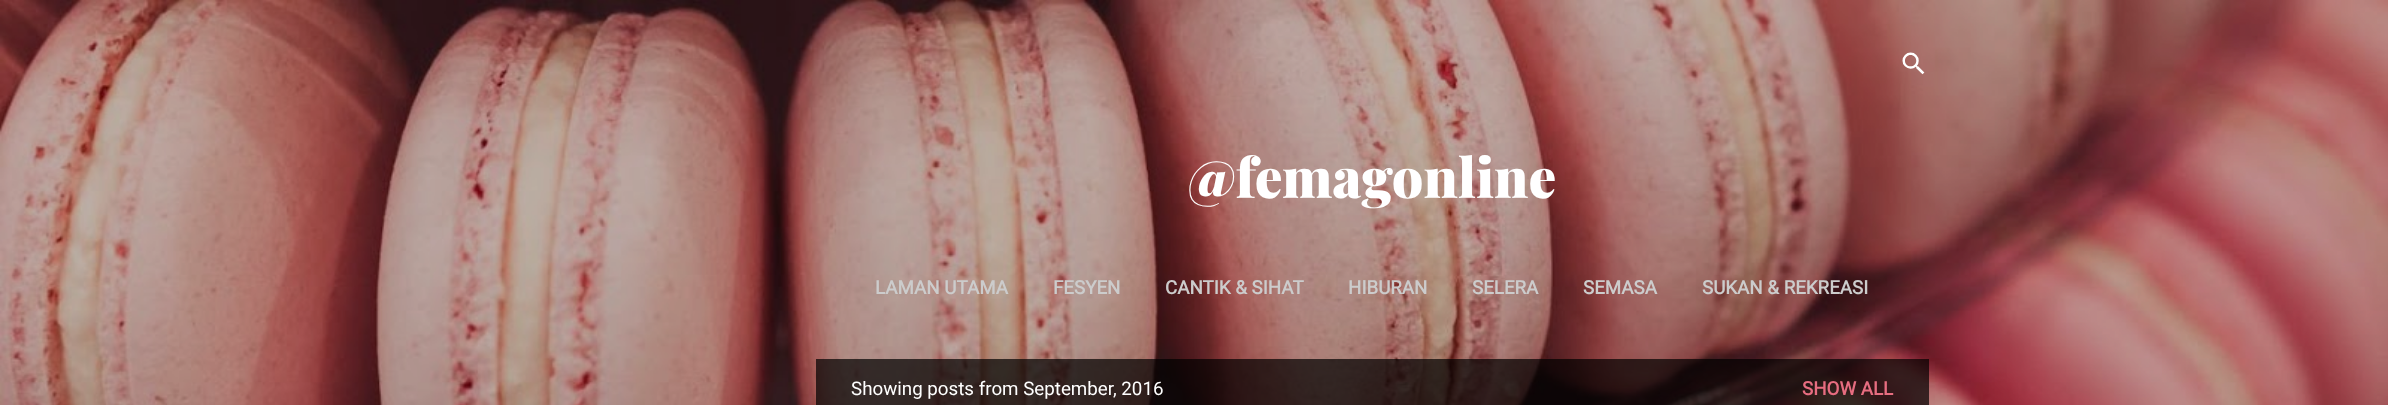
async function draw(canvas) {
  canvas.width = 2388;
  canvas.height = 405;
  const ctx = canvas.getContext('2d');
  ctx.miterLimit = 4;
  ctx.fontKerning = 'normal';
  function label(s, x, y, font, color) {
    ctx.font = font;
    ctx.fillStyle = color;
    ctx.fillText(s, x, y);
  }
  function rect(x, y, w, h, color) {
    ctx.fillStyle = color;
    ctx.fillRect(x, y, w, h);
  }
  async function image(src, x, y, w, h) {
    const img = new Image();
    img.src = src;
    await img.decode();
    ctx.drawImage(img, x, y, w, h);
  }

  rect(0, 0, 2388, 405, '#fff');
  await image('assets/img1.png', 0, 0, 2388, 405);
  await image('assets/img2.png', 1902, 52, 23, 23);
  label('@femagonline', 1187, 198, '900 55px Playfair Display', '#fff');
  label('LAMAN UTAMA', 875, 294, 'bold 18.75px Roboto', '#ccc');
  label('FESYEN', 1053, 294, 'bold 18.75px Roboto', '#ccc');
  label('CANTIK & SIHAT', 1165, 294, 'bold 18.75px Roboto', '#ccc');
  label('HIBURAN', 1348, 294, 'bold 18.75px Roboto', '#ccc');
  label('SELERA', 1472, 294, 'bold 18.75px Roboto', '#ccc');
  label('SEMASA', 1583, 294, 'bold 18.75px Roboto', '#ccc');
  label('SUKAN & REKREASI', 1702, 294, 'bold 18.75px Roboto', '#ccc');
  rect(816, 359, 1113, 46, '#000000b3');
  label('Showing posts from September, 2016', 851, 395, '18.75px Roboto', '#fff');
  label('SHOW ALL', 1802, 395, 'bold 18.75px Roboto', '#e76d80');
}

draw(document.querySelector('canvas'));
